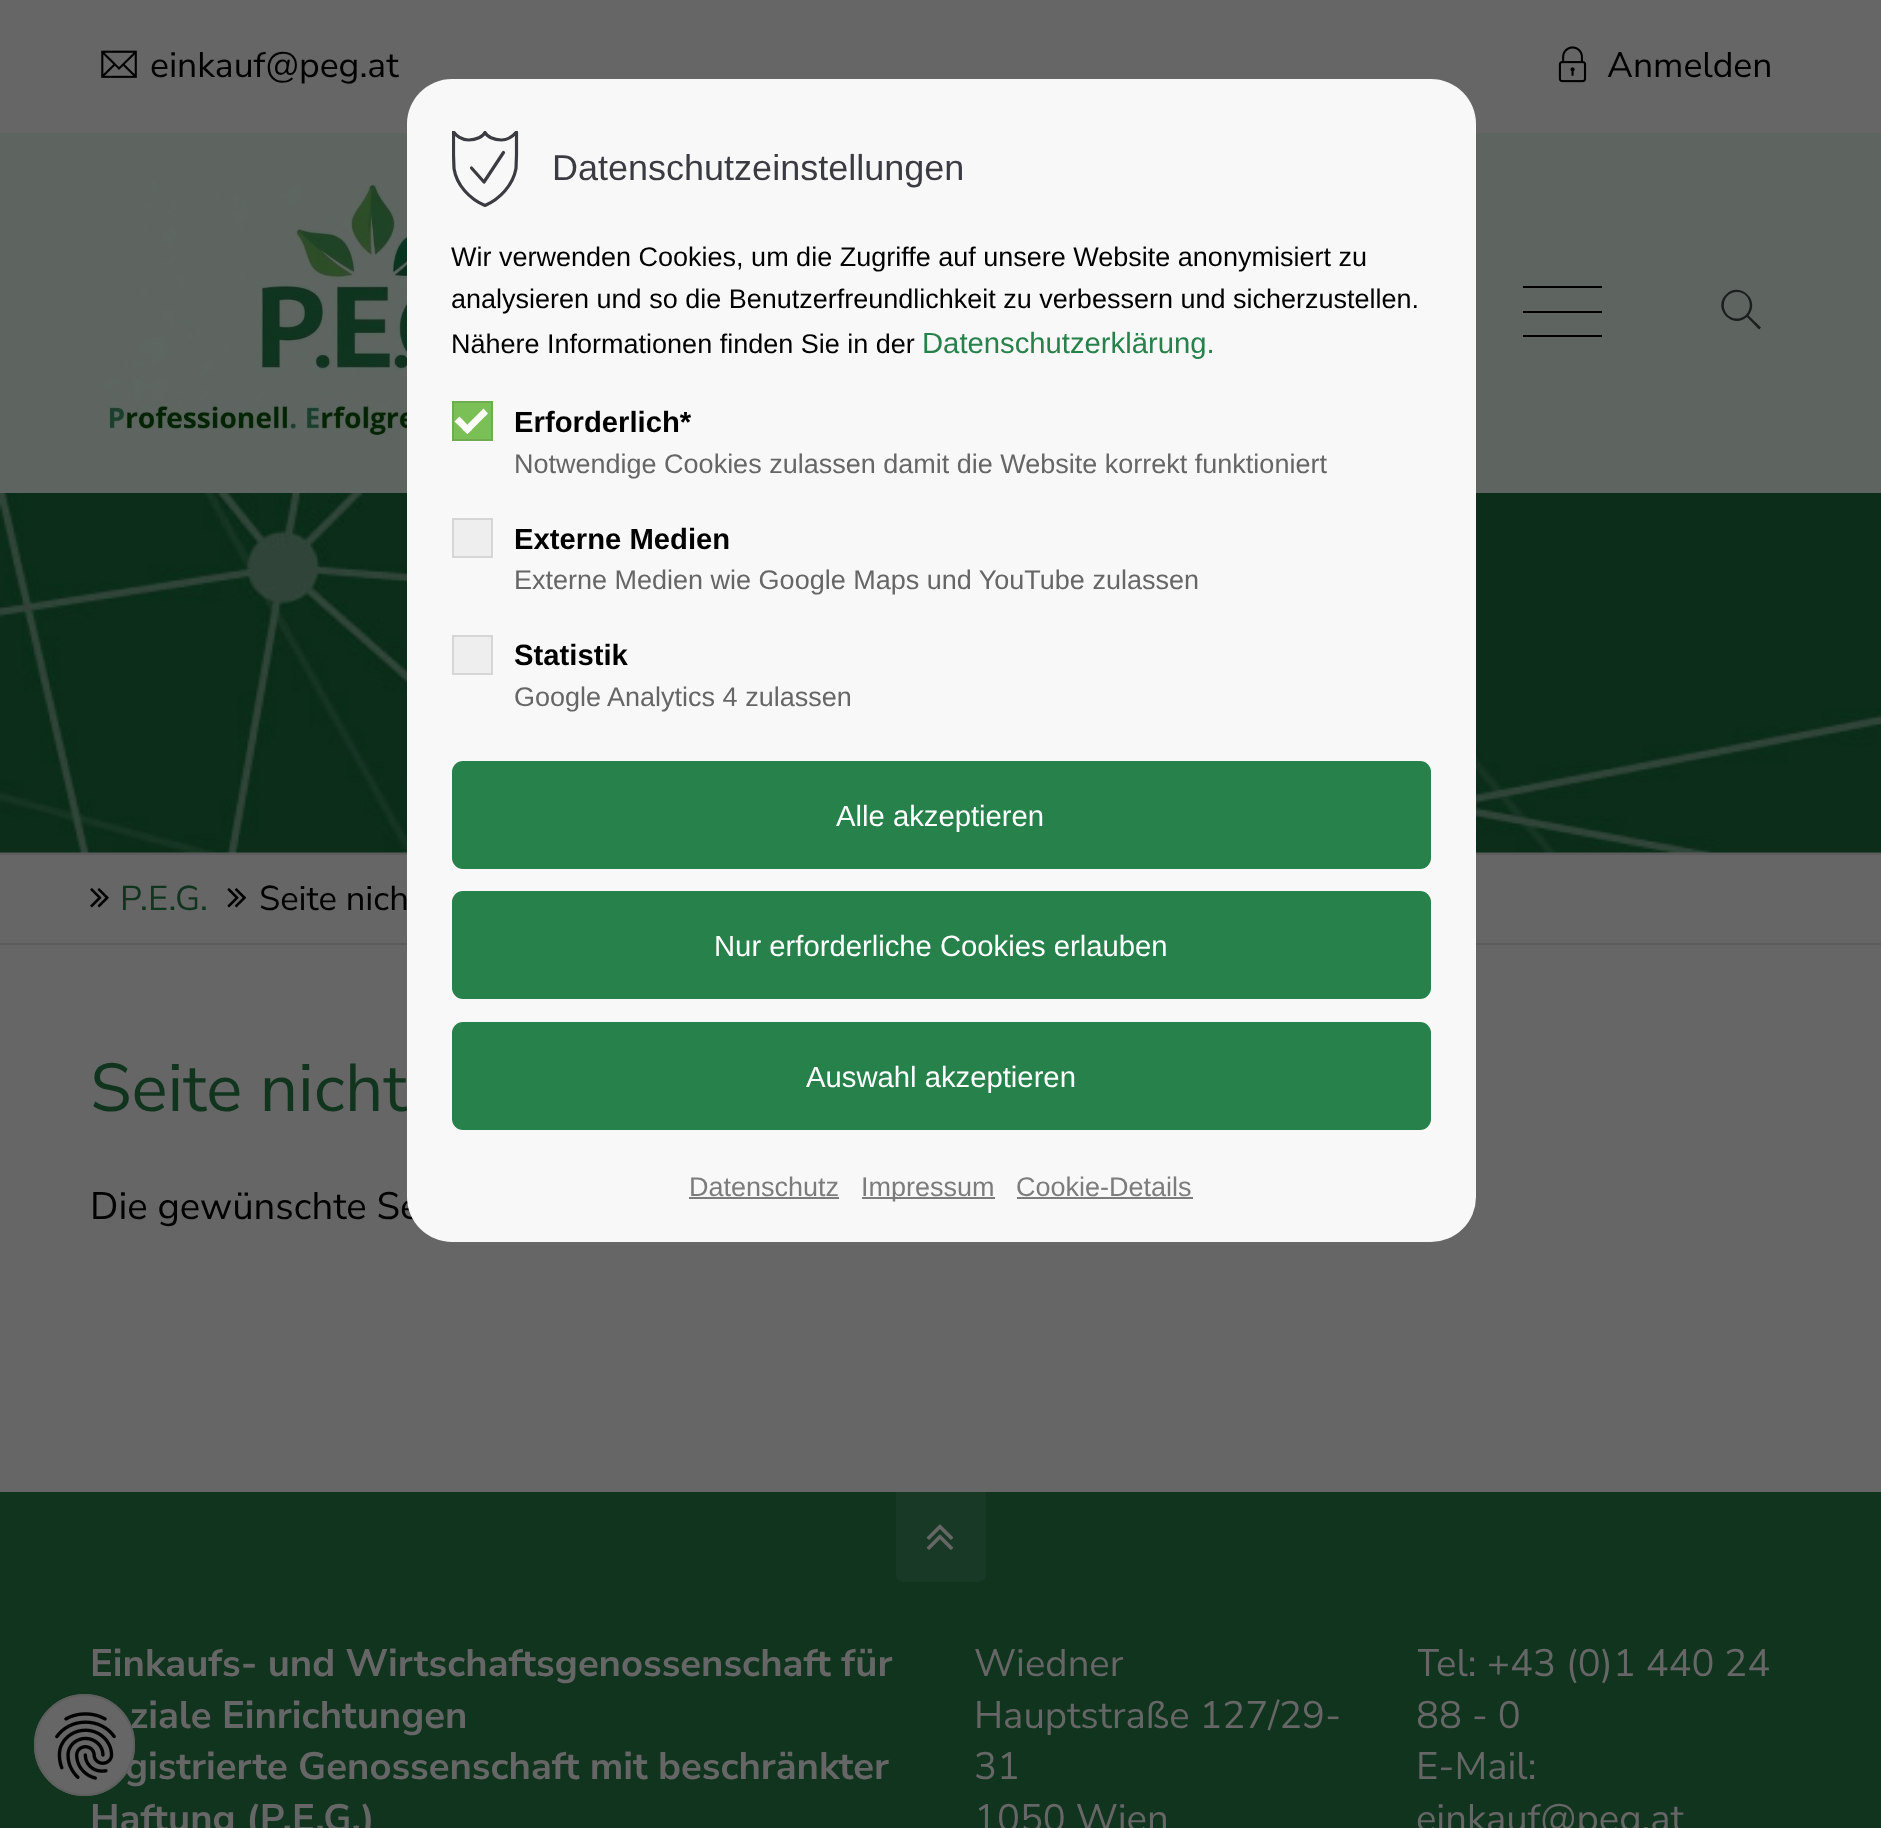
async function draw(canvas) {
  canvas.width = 1881;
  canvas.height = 1828;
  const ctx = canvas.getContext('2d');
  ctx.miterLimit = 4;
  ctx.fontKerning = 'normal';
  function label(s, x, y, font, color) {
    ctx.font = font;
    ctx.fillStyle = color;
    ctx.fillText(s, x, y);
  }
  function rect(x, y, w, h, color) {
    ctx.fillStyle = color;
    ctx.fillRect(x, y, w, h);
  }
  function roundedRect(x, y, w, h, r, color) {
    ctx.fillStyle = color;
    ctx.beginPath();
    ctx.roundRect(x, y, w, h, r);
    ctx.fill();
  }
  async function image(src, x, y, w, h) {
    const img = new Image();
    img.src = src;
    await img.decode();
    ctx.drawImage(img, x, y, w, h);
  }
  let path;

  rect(0, 0, 1881, 1828, '#666');
  await image('assets/img1.png', 101, 50, 36, 28);
  label('einkauf@peg.at', 150, 77, '35.5px Nunito Sans', '#000');
  await image('assets/img2.png', 1558, 46, 29, 37);
  label('Anmelden', 1607, 77, '35.5px Nunito Sans', '#000');
  rect(0, 133, 1881, 360, '#5e6561');
  await image('assets/img3.png', 105, 180, 302, 261);
  rect(1523, 311, 79, 2, '#000');
  rect(1523, 286, 79, 2, '#000');
  rect(1523, 335, 79, 2, '#000');
  ctx.fillStyle = '#1c1e1d';
  path = new Path2D('M1761 327.5L1748.5 315.5C1761 300.5 1740 280.5 1726 294.5C1712 308 1732 330 1747 317L1759 329.5ZM1737 318.5C1719.5 318.5 1719.5 292 1737 292C1754 292 1754 318.5 1737 318.5Z');
  ctx.fill(path);
  await image('assets/img4.png', 0, 493, 1881, 360);
  rect(0, 853, 1881, 2, '#5c5c5c');
  rect(0, 943, 1881, 2, '#5c5c5c');
  await image('assets/img5.png', 90, 888, 19, 20);
  label('P.E.G.', 120, 910, '34.5px Nunito Sans', '#10341e');
  await image('assets/img6.png', 227, 888, 19, 20);
  label('Seite nich', 259, 910, '34.5px Nunito Sans', '#000');
  label('Seite nicht', 90, 1111, '67.5px Nunito Sans', '#10341e');
  label('Die gewünschte Se', 90, 1219, '38.25px Nunito Sans', '#000');
  rect(0, 1492, 1881, 336, '#10341e');
  ctx.fillStyle = '#183925';
  ctx.beginPath();
  ctx.roundRect(896, 1492, 90, 90, [0, 0, 7, 7]);
  ctx.fill();
  await image('assets/img7.png', 926, 1524, 28, 26);
  label('Einkaufs- und Wirtschaftsgenossenschaft für', 90, 1676, 'bold 38.25px Nunito Sans', '#666');
  label('ziale Einrichtungen', 130, 1728, 'bold 38.25px Nunito Sans', '#666');
  label('gistrierte Genossenschaft mit beschränkter', 125, 1779, 'bold 38.25px Nunito Sans', '#666');
  label('Haftung (P.E.G.)', 90, 1831, 'bold 38.25px Nunito Sans', '#666');
  label('Wiedner', 974, 1676, '38.25px Nunito Sans', '#666');
  label('Hauptstraße 127/29-', 974, 1728, '38.25px Nunito Sans', '#666');
  label('31', 974, 1779, '38.25px Nunito Sans', '#666');
  label('1050 Wien', 974, 1831, '38.25px Nunito Sans', '#666');
  ctx.save();
  ctx.beginPath();
  ctx.rect(1418, 1638, 373, 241);
  ctx.clip();
  label('Tel:', 1416, 1676, '38.25px Nunito Sans', '#666');
  ctx.restore();
  label('+43 (0)1 440 24', 1487, 1676, '38.25px Nunito Sans', '#666');
  label('88 - 0', 1416, 1728, '38.25px Nunito Sans', '#666');
  label('E-Mail:', 1416, 1779, '38.25px Nunito Sans', '#666');
  label('einkauf@peg.at', 1416, 1831, '38.25px Nunito Sans', '#666');
  roundedRect(407, 79, 1069, 1163, 45, '#f8f8f8');
  ctx.save();
  ctx.beginPath();
  ctx.rect(452, 131, 68, 76);
  ctx.clip();
  path = new Path2D('M485 205.5C469.5 199 456.5 185 454 168.5L453.5 154.5V132C456 135.5 462 140 468.5 140C476.5 140 483 136.5 485 132.5C487 136.5 493.5 140 501.5 140C508 140 513.5 135.5 516.5 132V154.5L516 168.5C513 185 500 199 485 205.5Z');
  ctx.strokeStyle = '#3b3c41';
  ctx.lineWidth = 3.2;
  ctx.lineCap = 'round';
  ctx.lineJoin = 'round';
  ctx.stroke(path);
  ctx.restore();
  path = new Path2D('M471.5 168L484 182L503.5 152.5');
  ctx.strokeStyle = '#3b3c41';
  ctx.lineWidth = 3.2;
  ctx.lineCap = 'round';
  ctx.lineJoin = 'round';
  ctx.stroke(path);
  label('Datenschutzeinstellungen', 552, 180, '36px Liberation Sans', '#3b3c42');
  label('Wir verwenden Cookies, um die Zugriffe auf unsere Website anonymisiert zu', 451, 266, '27px Liberation Sans', '#000');
  label('analysieren und so die Benutzerfreundlichkeit zu verbessern und sicherzustellen.', 451, 308, '27px Liberation Sans', '#000');
  label('Nähere Informationen finden Sie in der', 451, 353, '27px Liberation Sans', '#000');
  label('Datenschutzerklärung.', 922, 353, '29.25px Liberation Sans', '#27814b');
  ctx.fillStyle = '#7bc057';
  ctx.beginPath();
  ctx.rect(453, 402, 39, 38);
  ctx.fill();
  ctx.strokeStyle = '#6fad4e';
  ctx.lineWidth = 2;
  ctx.lineJoin = 'miter';
  ctx.stroke();
  ctx.fillStyle = '#fff';
  path = new Path2D('M483.5 408.5L488 413.5L467.5 434L462.5 429.5Z');
  ctx.fill(path);
  path = new Path2D('M459.5 416.5L472 429.5L467.5 434L454.5 421.5Z');
  ctx.fill(path);
  label('Erforderlich*', 514, 432, 'bold 29.25px Liberation Sans', '#000');
  label('Notwendige Cookies zulassen damit die Website korrekt funktioniert', 514, 473, '27px Liberation Sans', '#666');
  ctx.fillStyle = '#eee';
  ctx.beginPath();
  ctx.rect(453, 519, 39, 38);
  ctx.fill();
  ctx.strokeStyle = '#d6d6d6';
  ctx.stroke();
  label('Externe Medien', 514, 549, 'bold 29.25px Liberation Sans', '#000');
  label('Externe Medien wie Google Maps und YouTube zulassen', 514, 589, '27px Liberation Sans', '#666');
  ctx.fillStyle = '#eee';
  ctx.beginPath();
  ctx.rect(453, 636, 39, 38);
  ctx.fill();
  ctx.stroke();
  label('Statistik', 514, 665, 'bold 29.25px Liberation Sans', '#000');
  label('Google Analytics 4 zulassen', 514, 706, '27px Liberation Sans', '#666');
  roundedRect(452, 761, 979, 108, 11, '#27814b');
  label('Alle akzeptieren', 836, 826, '29.25px Liberation Sans', '#fff');
  roundedRect(452, 891, 979, 108, 11, '#27814b');
  label('Nur erforderliche Cookies erlauben', 714, 956, '29.25px Liberation Sans', '#fff');
  roundedRect(452, 1022, 979, 108, 11, '#27814b');
  label('Auswahl akzeptieren', 806, 1087, '29.25px Liberation Sans', '#fff');
  label('Datenschutz', 689, 1196, '27px Liberation Sans', '#7c7c7c');
  rect(689, 1197, 150, 2, '#7c7c7c');
  rect(862, 1197, 133, 2, '#7c7c7c');
  label('Impressum', 861, 1196, '27px Liberation Sans', '#7c7c7c');
  label('Cookie-Details', 1016, 1196, '27px Liberation Sans', '#7c7c7c');
  rect(1017, 1197, 176, 2, '#7c7c7c');
  roundedRect(34, 1694, 101, 102, 50.5, '#666');
  await image('assets/img8.png', 55, 1712, 61, 68);
  ctx.beginPath();
  ctx.roundRect(35, 1695, 99, 100, 49.5);
  ctx.strokeStyle = '#5e5f5e';
  ctx.stroke();
}

draw(document.querySelector('canvas'));
